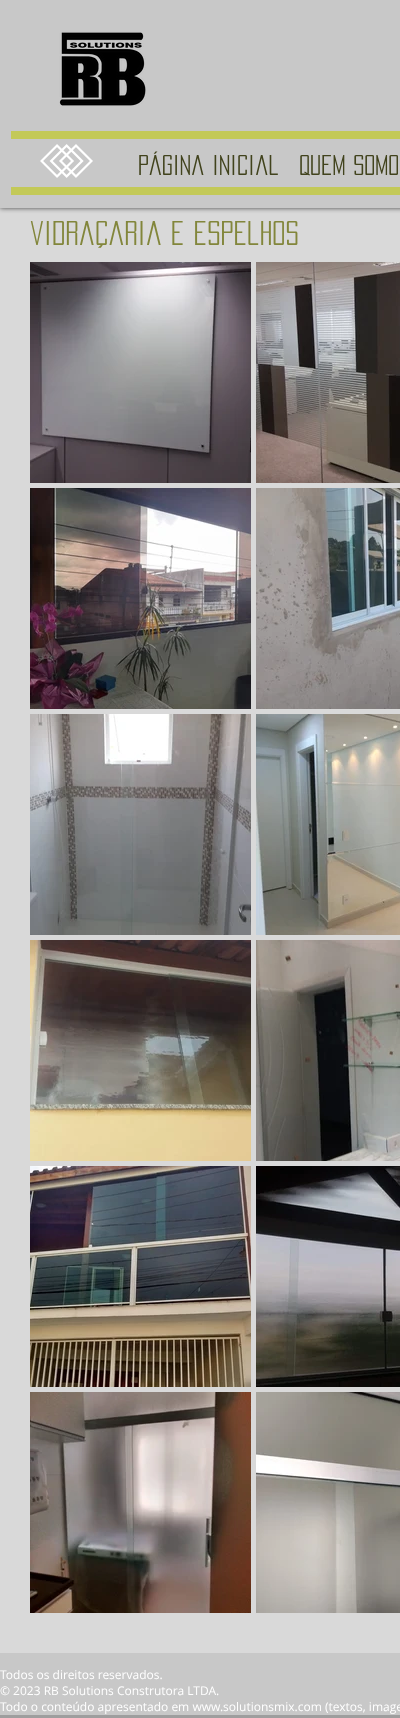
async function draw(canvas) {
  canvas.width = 400;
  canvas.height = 1718;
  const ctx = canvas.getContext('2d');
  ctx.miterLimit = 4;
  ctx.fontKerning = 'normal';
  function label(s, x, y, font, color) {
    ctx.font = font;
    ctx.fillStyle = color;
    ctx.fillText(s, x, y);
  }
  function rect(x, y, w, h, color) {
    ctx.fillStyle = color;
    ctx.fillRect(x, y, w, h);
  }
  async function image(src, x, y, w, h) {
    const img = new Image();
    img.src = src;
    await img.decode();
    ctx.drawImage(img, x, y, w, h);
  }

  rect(0, 0, 400, 1718, '#9e9e9e');
  rect(0, 208, 400, 1445, '#d9d9d9');
  ctx.fillStyle = '#000000b3';
  ctx.filter = 'blur(2.5px)';
  ctx.beginPath();
  ctx.rect(0, 0, 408, 208);
  ctx.fill();
  ctx.filter = 'none';
  rect(0, 0, 400, 208, '#c8c8c8');
  await image('assets/img1.png', 59, 32, 87, 74);
  rect(11, 131, 389, 8, '#c3c958');
  await image('assets/img2.png', 40, 144, 53, 34);
  label('página inicial', 138, 175, '25px "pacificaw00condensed"', '#41431d');
  label('Quem Somo', 299, 175, '25px "pacificaw00condensed"', '#41431d');
  rect(11, 187, 389, 8, '#c3c958');
  label('vidraçaria e espelhos', 30, 245, '30px "pacificaw00condensed"', '#82863b');
  await image('assets/img3.png', 30, 262, 221, 221);
  await image('assets/img4.png', 256, 262, 144, 221);
  await image('assets/img5.png', 30, 488, 221, 221);
  await image('assets/img6.png', 256, 488, 144, 221);
  await image('assets/img7.png', 30, 714, 221, 221);
  await image('assets/img8.png', 256, 714, 144, 221);
  await image('assets/img9.png', 30, 940, 221, 221);
  await image('assets/img10.png', 256, 940, 144, 221);
  await image('assets/img11.png', 30, 1166, 221, 221);
  await image('assets/img12.png', 256, 1166, 144, 221);
  await image('assets/img13.png', 30, 1392, 221, 221);
  await image('assets/img14.png', 256, 1392, 144, 221);
  rect(0, 1653, 400, 62, '#c8c8c8');
  label('Todos os direitos reservados.', 0, 1679, '12px Open Sans', '#fff');
  label('© 2023 RB Solutions Construtora LTDA.', 0, 1695, '12px Open Sans', '#fff');
  label('Todo o conteúdo apresentado em www.solutionsmix.com (textos, image', 0, 1711, '12px Open Sans', '#fff');
}

draw(document.querySelector('canvas'));
